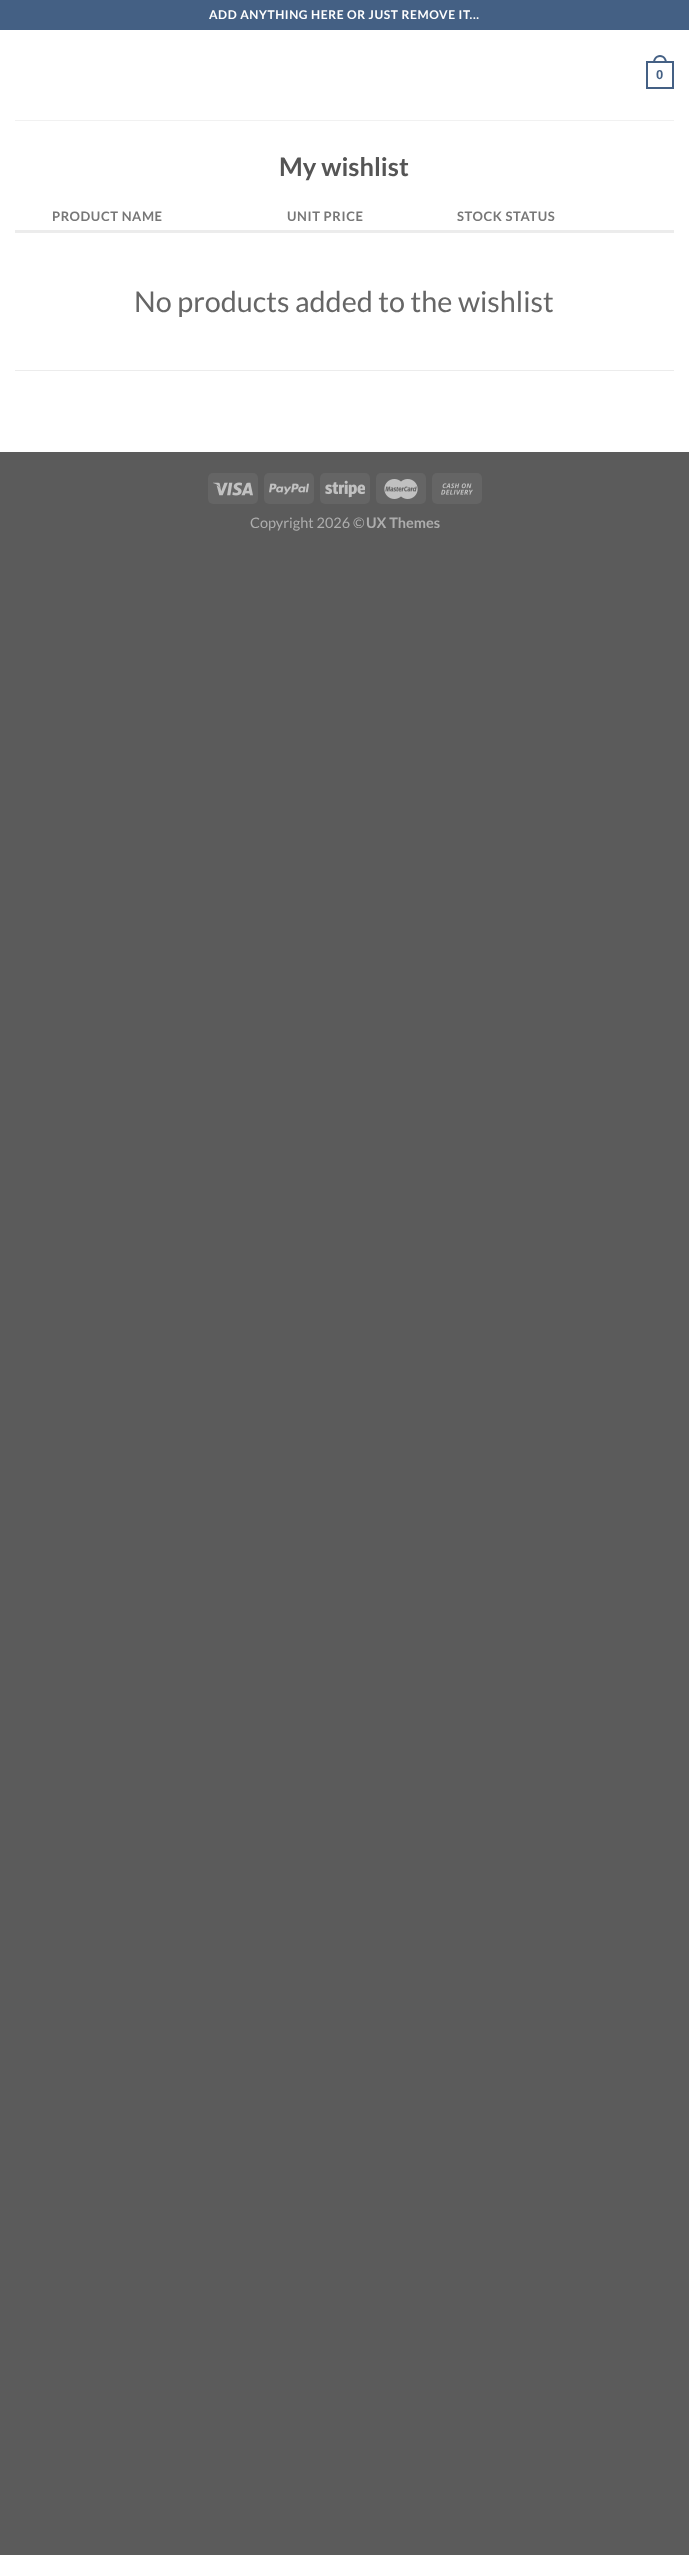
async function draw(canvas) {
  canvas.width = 689;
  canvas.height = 2555;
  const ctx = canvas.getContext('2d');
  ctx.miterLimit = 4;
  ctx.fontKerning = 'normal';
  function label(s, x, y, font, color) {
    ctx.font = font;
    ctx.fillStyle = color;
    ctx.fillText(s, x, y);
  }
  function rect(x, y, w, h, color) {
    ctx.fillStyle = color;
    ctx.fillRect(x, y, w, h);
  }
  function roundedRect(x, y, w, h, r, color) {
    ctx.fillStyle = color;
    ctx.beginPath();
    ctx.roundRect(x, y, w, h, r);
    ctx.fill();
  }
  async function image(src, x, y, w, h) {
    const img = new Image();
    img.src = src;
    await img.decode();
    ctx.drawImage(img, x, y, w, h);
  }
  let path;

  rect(0, 0, 689, 2555, '#5b5b5b');
  rect(0, 30, 689, 422, '#fff');
  rect(0, 0, 689, 30, '#446084');
  ctx.letterSpacing = '0.6px';
  label('ADD ANYTHING HERE OR JUST REMOVE IT...', 209, 19, 'bold 12px Lato', '#fff');
  ctx.strokeStyle = '#446084';
  ctx.lineWidth = 2;
  ctx.strokeRect(647, 62, 26, 26);
  ctx.fillStyle = '#446084';
  path = new Path2D('M660 55C664.5 55 667 59 667 63H653C653 59 655.5 55 660 55ZM660 57C663.5 57 665 60 665 63H655C655 60 656.5 57 660 57Z');
  ctx.fill(path, 'evenodd');
  ctx.letterSpacing = '0px';
  label('0', 656, 79, 'bold 13px Liberation Sans', '#446084');
  rect(15, 120, 659, 1, '#f1f1f1');
  label('My wishlist', 279, 176, 'bold 25.5px Lato', '#555');
  ctx.letterSpacing = '0.6px';
  label('PRODUCT NAME', 52, 221, 'bold 13px Lato', '#777');
  label('UNIT PRICE', 287, 221, 'bold 13px Lato', '#777');
  label('STOCK STATUS', 457, 221, 'bold 13px Lato', '#777');
  rect(15, 230, 659, 3, '#ececec');
  rect(15, 370, 659, 1, '#ececec');
  ctx.letterSpacing = '0px';
  label('No products added to the wishlist', 134, 312, '28.75px Lato', '#666');
  roundedRect(208, 473, 50, 31, 5, '#656565');
  await image('assets/img1.png', 213, 482, 40, 14);
  roundedRect(264, 473, 50, 31, 5, '#656565');
  await image('assets/img2.png', 269, 483, 40, 12);
  roundedRect(320, 473, 50, 31, 5, '#656565');
  await image('assets/img3.png', 325, 480, 40, 18);
  roundedRect(376, 473, 50, 31, 5, '#656565');
  await image('assets/img4.png', 384, 479, 34, 20);
  roundedRect(432, 473, 50, 31, 5, '#656565');
  await image('assets/img5.png', 441, 483, 32, 12);
  label('Copyright 2026 ©', 250, 528, '14.5px Lato', '#adadad');
  label('UX Themes', 366, 528, 'bold 14.5px Lato', '#adadad');
}

draw(document.querySelector('canvas'));
